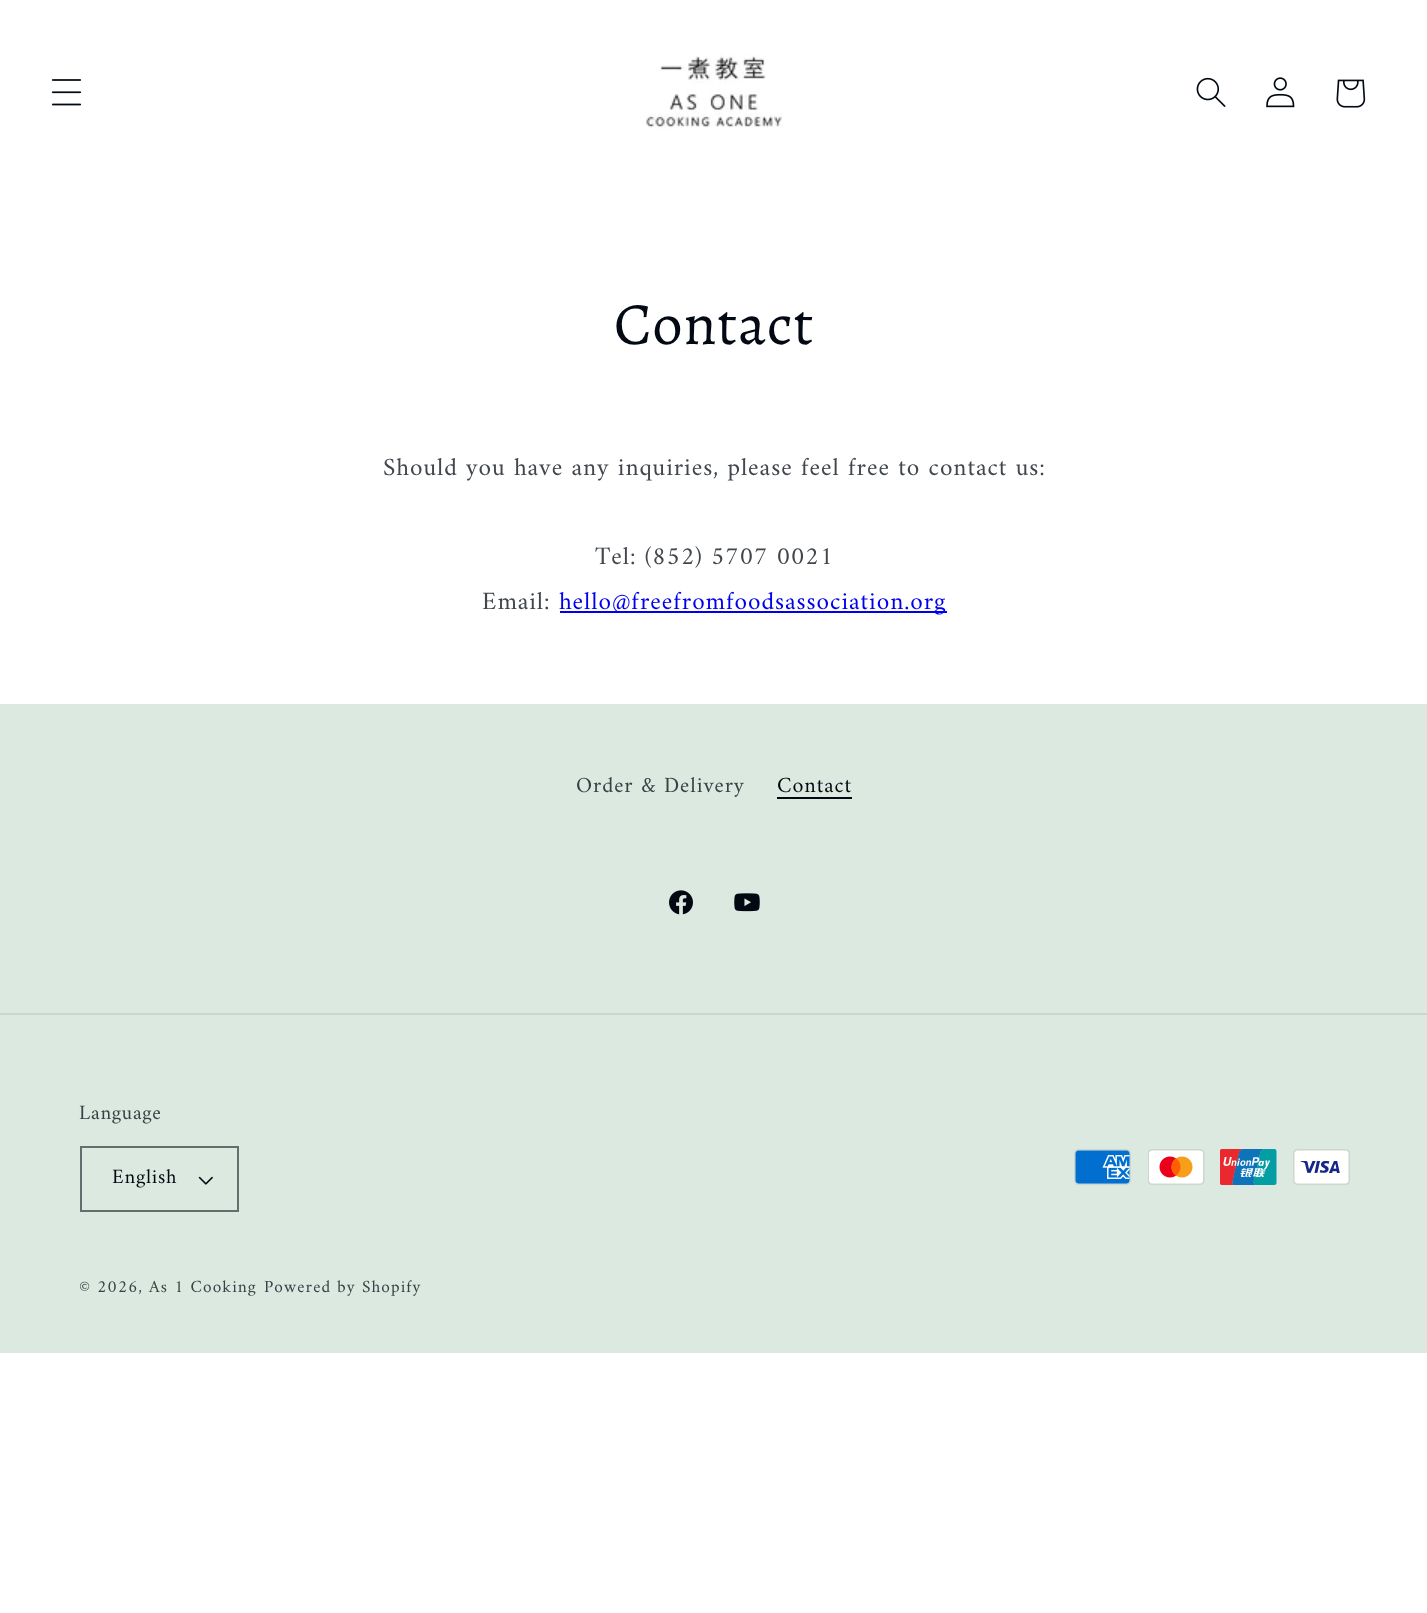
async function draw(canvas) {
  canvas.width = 1427;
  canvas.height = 1613;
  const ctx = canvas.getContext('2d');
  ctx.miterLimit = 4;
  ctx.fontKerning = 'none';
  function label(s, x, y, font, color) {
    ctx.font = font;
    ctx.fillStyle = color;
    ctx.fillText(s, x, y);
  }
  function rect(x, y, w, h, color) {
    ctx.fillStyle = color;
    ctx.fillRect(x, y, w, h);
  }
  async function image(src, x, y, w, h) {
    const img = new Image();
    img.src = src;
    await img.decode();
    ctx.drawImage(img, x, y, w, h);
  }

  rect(0, 0, 1427, 1613, '#fff');
  await image('assets/img1.png', 51, 79, 31, 27);
  await image('assets/img2.png', 646, 54, 137, 75);
  await image('assets/img3.png', 1196, 77, 30, 30);
  await image('assets/img4.png', 1266, 77, 29, 31);
  await image('assets/img5.png', 1336, 79, 30, 29);
  ctx.letterSpacing = '1px';
  label('Contact', 614, 344, '60px Alegreya', '#020912');
  ctx.letterSpacing = '0.95px';
  label('Should you have any inquiries, please feel free to contact us:', 383, 475, '25.2px Amiri', '#41474d');
  label('Tel: (852) 5707 0021', 595, 564, '25.2px Amiri', '#41474d');
  label('Email:', 482, 609, '25.2px Amiri', '#41474d');
  rect(560, 611, 387, 2, '#00e');
  label('hello@freefromfoodsassociation.org', 559, 609, '25.2px Amiri', '#00e');
  rect(0, 704, 1427, 649, '#dbe9e0');
  label('Order & Delivery', 576, 792, '22px Amiri', '#384146');
  label('Contact', 777, 792, '22px Amiri', '#020912');
  rect(777, 797, 75, 2, '#020912');
  await image('assets/img6.png', 669, 890, 24, 25);
  await image('assets/img7.png', 734, 893, 26, 19);
  rect(0, 1013, 1427, 2, '#cad7d0');
  ctx.letterSpacing = '0.75px';
  label('Language', 79, 1119, '20.5px Amiri', '#384146');
  await image('assets/img8.png', 198, 1176, 15, 9);
  ctx.strokeStyle = '#646e6f';
  ctx.lineWidth = 2;
  ctx.strokeRect(81, 1147, 157, 64);
  label('English', 112, 1183, '20.5px Amiri', '#020912');
  await image('assets/img9.png', 1074, 1149, 57, 36);
  await image('assets/img10.png', 1148, 1149, 57, 36);
  await image('assets/img11.png', 1220, 1149, 57, 36);
  await image('assets/img12.png', 1293, 1149, 57, 36);
  ctx.letterSpacing = '1.1px';
  label('© 2026, As 1 Cooking', 79, 1292, '17.25px Amiri', '#384146');
  label('Powered by Shopify', 264, 1292, '17.25px Amiri', '#384146');
}

draw(document.querySelector('canvas'));
